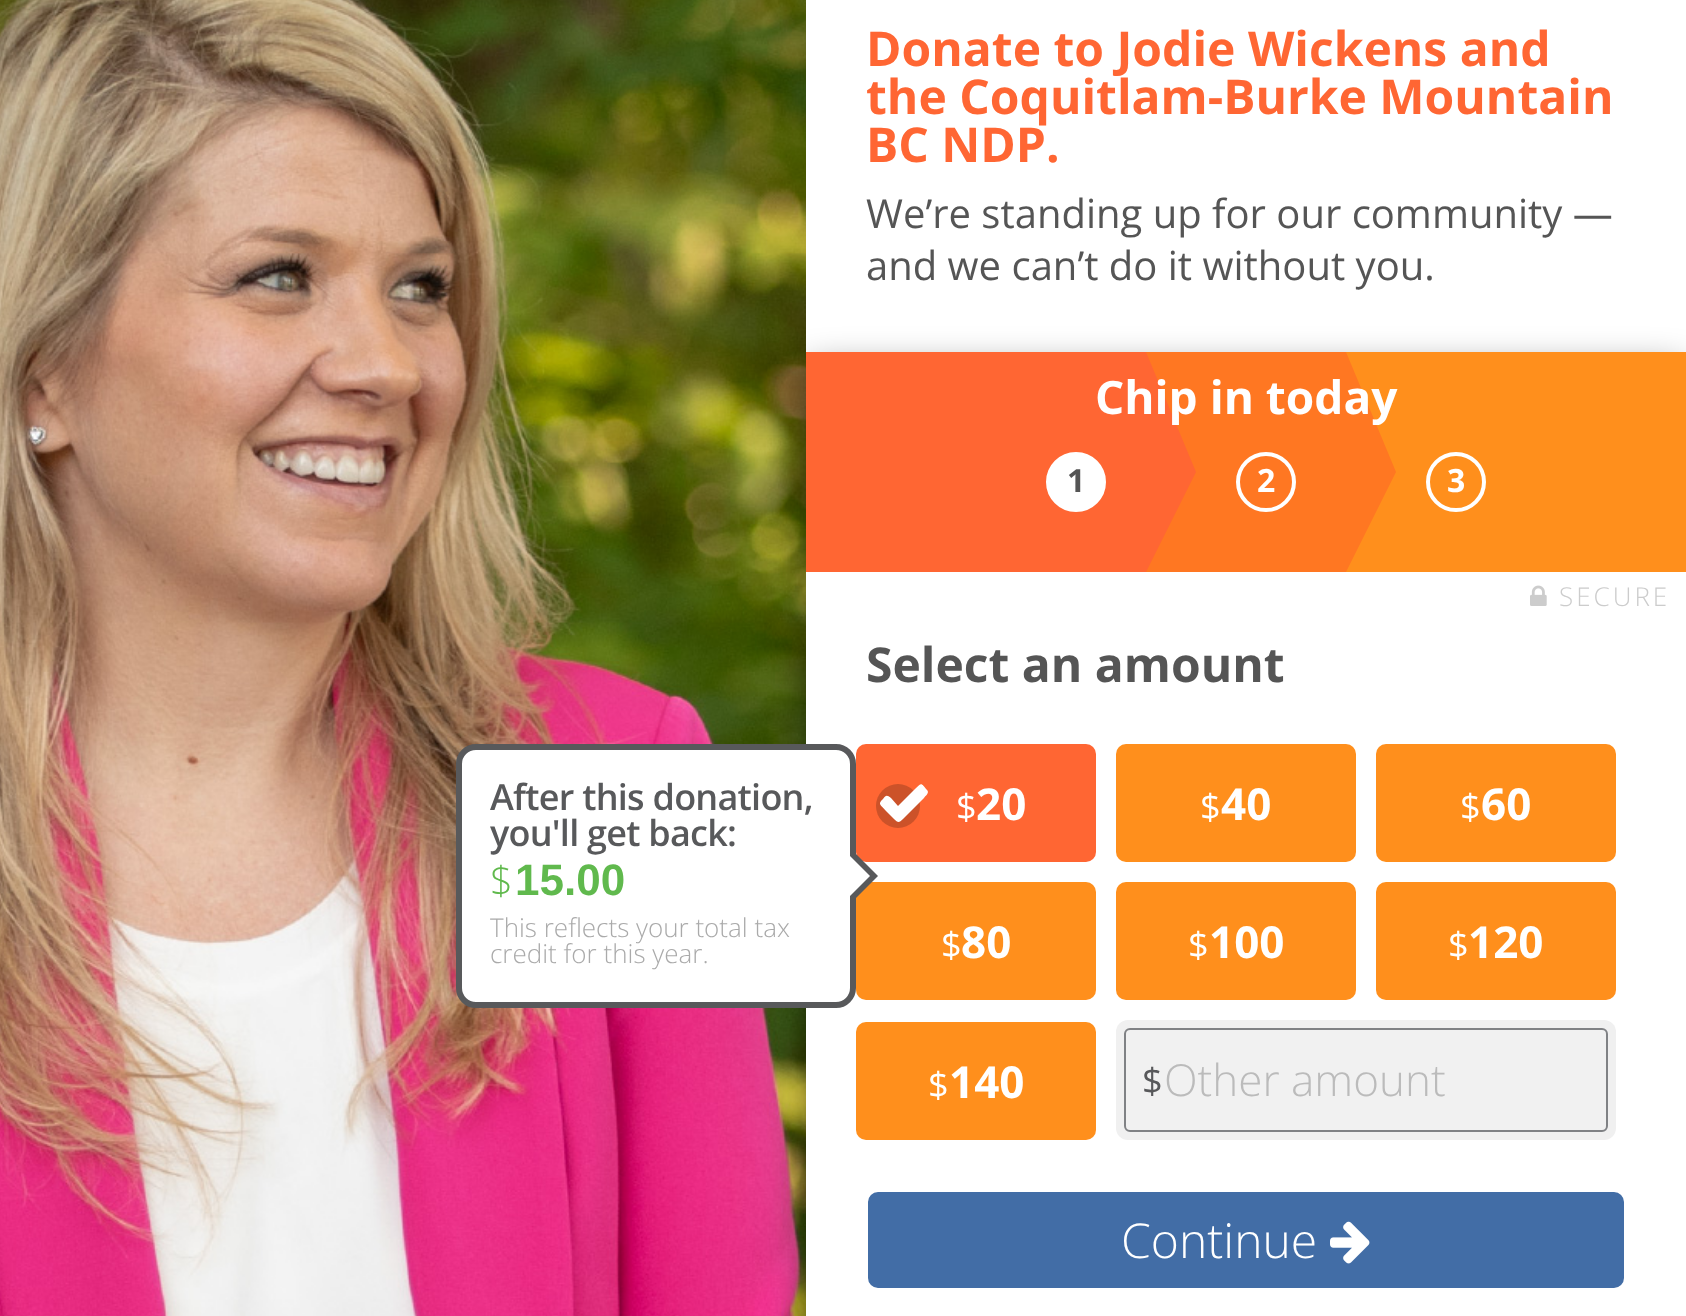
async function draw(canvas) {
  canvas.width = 1686;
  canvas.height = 1316;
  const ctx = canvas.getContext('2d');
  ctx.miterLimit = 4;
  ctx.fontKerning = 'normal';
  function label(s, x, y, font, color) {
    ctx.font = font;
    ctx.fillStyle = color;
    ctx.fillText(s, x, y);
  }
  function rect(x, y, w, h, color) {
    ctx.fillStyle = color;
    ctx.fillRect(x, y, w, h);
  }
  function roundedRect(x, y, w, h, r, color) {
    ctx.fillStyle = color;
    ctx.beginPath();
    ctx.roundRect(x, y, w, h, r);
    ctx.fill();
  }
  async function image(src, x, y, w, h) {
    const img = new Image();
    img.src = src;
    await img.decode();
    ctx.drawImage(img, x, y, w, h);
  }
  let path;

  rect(0, 0, 1686, 1316, '#fff');
  await image('assets/img1.png', 0, 0, 806, 1316);
  label('Donate to Jodie Wickens and', 866, 66, 'bold 48px Open Sans', '#f63');
  label('the Coquitlam-Burke Mountain', 866, 114, 'bold 48px Open Sans', '#f63');
  label('BC NDP.', 866, 162, 'bold 48px Open Sans', '#f63');
  label('We’re standing up for our community —', 866, 228, '40px Open Sans', '#555');
  label('and we can’t do it without you.', 866, 280, '40px Open Sans', '#555');
  ctx.fillStyle = '#00000080';
  ctx.filter = 'blur(18px)';
  ctx.beginPath();
  ctx.roundRect(806, 368, 880, 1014, 12);
  ctx.fill();
  ctx.filter = 'none';
  rect(806, 572, 880, 744, '#fff');
  rect(806, 352, 340, 220, '#f63');
  rect(1146, 352, 200, 220, '#f72');
  ctx.fillStyle = '#f63';
  path = new Path2D('M1146 572V352L1196 472Z');
  ctx.fill(path);
  rect(1346, 352, 340, 220, '#ff8f1c');
  ctx.fillStyle = '#f72';
  path = new Path2D('M1346 572V352L1396 472Z');
  ctx.fill(path);
  label('Chip in today', 1095, 414, 'bold 46px Open Sans', '#fff');
  ctx.beginPath();
  ctx.arc(1076, 482, 28, 0, 2 * Math.PI);
  ctx.fill();
  ctx.strokeStyle = '#fff';
  ctx.lineWidth = 4;
  ctx.stroke();
  label('1', 1067, 492, 'bold 32px Open Sans', '#555');
  ctx.beginPath();
  ctx.arc(1266, 482, 28, 0, 2 * Math.PI);
  ctx.stroke();
  label('2', 1257, 492, 'bold 32px Open Sans', '#fff');
  ctx.beginPath();
  ctx.arc(1456, 482, 28, 0, 2 * Math.PI);
  ctx.stroke();
  label('3', 1447, 492, 'bold 32px Open Sans', '#fff');
  await image('assets/img2.png', 1530, 585, 17, 21);
  ctx.letterSpacing = '3px';
  label('SECURE', 1559, 606, '300 26px Open Sans', '#ccc');
  ctx.letterSpacing = '0px';
  label('Select an amount', 866, 682, 'bold 48px Open Sans', '#555');
  ctx.fillStyle = '#fff';
  ctx.beginPath();
  ctx.roundRect(459, 747, 394, 258, 17);
  ctx.fill();
  ctx.strokeStyle = '#58595b';
  ctx.lineWidth = 6;
  ctx.stroke();
  ctx.letterSpacing = '-0.75px';
  label('After this donation,', 490, 810, '600 36px Open Sans', '#58595b');
  label('you\'ll get back:', 490, 846, '600 36px Open Sans', '#58595b');
  ctx.letterSpacing = '0px';
  label('$', 490, 895, '300 40px Open Sans', '#60b94d');
  label('15.00', 515, 895, 'bold 44px Liberation Sans', '#60b94d');
  label('This reflects your total tax', 490, 937, '300 26px Open Sans', '#aaa');
  label('credit for this year.', 490, 963, '300 26px Open Sans', '#aaa');
  roundedRect(856, 744, 240, 118, 10, '#f63');
  roundedRect(856, 882, 240, 118, 10, '#ff8f1c');
  ctx.fillStyle = '#58595b';
  path = new Path2D('M850 904V848L878 876Z');
  ctx.fill(path);
  ctx.fillStyle = '#fff';
  path = new Path2D('M850 896V856L870 876Z');
  ctx.fill(path);
  ctx.fillStyle = '#cc5229';
  ctx.beginPath();
  ctx.arc(898, 806, 22, 0, 2 * Math.PI);
  ctx.fill();
  ctx.fillStyle = '#fff';
  path = new Path2D('M927 790C930 793 925 796 924 798L903 819C899 823 898 823 894 819L886 811C881 805 877 804 883 799C886 795 887 795 891 798L898 806L915 789C922 782 921 783 927 790Z');
  ctx.fill(path);
  label('$', 956, 820, '36px Open Sans', '#fff');
  label('20', 976, 820, 'bold 44px Open Sans', '#fff');
  roundedRect(1116, 744, 240, 118, 10, '#ff8f1c');
  label('$', 1200, 820, '36px Open Sans', '#fff');
  label('40', 1221, 820, 'bold 44px Open Sans', '#fff');
  roundedRect(1376, 744, 240, 118, 10, '#ff8f1c');
  label('$', 1460, 820, '36px Open Sans', '#fff');
  label('60', 1481, 820, 'bold 44px Open Sans', '#fff');
  label('$', 941, 958, '36px Open Sans', '#fff');
  label('80', 961, 958, 'bold 44px Open Sans', '#fff');
  roundedRect(1116, 882, 240, 118, 10, '#ff8f1c');
  label('$', 1188, 958, '36px Open Sans', '#fff');
  label('100', 1209, 958, 'bold 44px Open Sans', '#fff');
  roundedRect(1376, 882, 240, 118, 10, '#ff8f1c');
  label('$', 1448, 958, '36px Open Sans', '#fff');
  label('120', 1468, 958, 'bold 44px Open Sans', '#fff');
  roundedRect(856, 1022, 240, 118, 10, '#ff8f1c');
  label('$', 928, 1098, '36px Open Sans', '#fff');
  label('140', 949, 1098, 'bold 44px Open Sans', '#fff');
  roundedRect(1116, 1020, 500, 120, 12, '#f0f0f0');
  ctx.fillStyle = '#ffffff1a';
  ctx.beginPath();
  ctx.roundRect(1125, 1029, 482, 102, 5);
  ctx.fill();
  ctx.strokeStyle = '#808285';
  ctx.lineWidth = 2;
  ctx.stroke();
  label('$', 1142, 1094, '36px Open Sans', '#58595b');
  label('Other amount', 1164, 1096, '300 44px Open Sans', '#bbb');
  ctx.fillStyle = '#426da6';
  ctx.beginPath();
  ctx.roundRect(867, 1191, 758, 98, 11);
  ctx.fill();
  ctx.strokeStyle = '#fff';
  ctx.stroke();
  label('Continue', 1121, 1258, '300 48px Open Sans', '#fff');
  await image('assets/img3.png', 1330, 1221, 40, 43);
}

draw(document.querySelector('canvas'));
